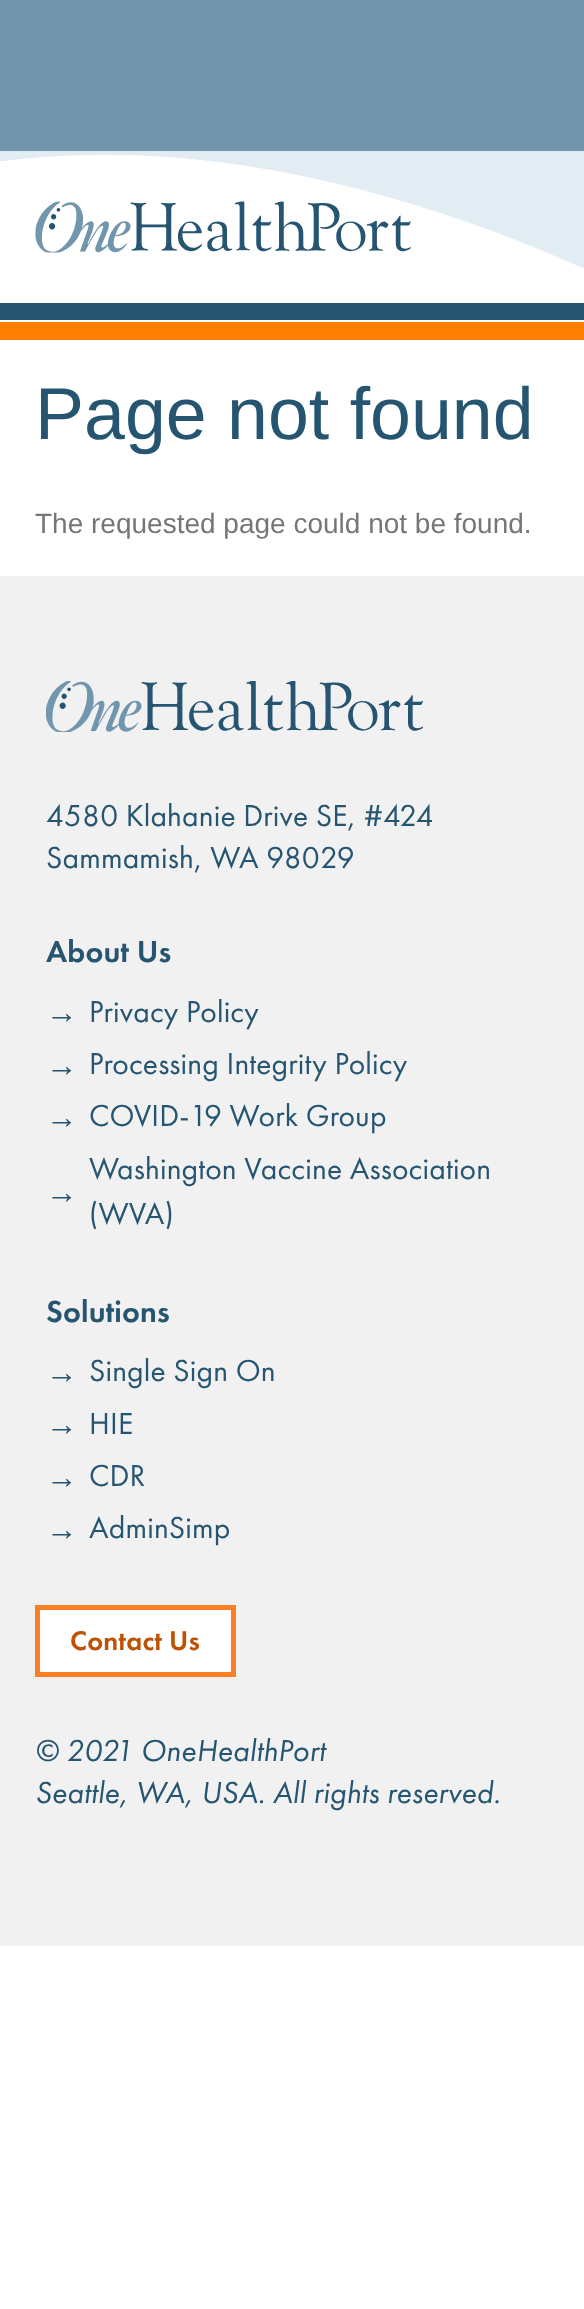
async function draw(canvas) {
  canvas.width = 584;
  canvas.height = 2309;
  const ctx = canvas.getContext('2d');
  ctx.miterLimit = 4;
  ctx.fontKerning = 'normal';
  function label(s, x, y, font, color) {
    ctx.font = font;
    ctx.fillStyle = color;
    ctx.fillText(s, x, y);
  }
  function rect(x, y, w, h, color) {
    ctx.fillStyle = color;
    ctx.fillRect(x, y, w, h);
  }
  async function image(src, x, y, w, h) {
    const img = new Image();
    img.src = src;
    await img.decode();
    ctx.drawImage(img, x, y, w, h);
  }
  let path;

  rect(0, 0, 584, 2309, '#fff');
  rect(0, 0, 584, 151, '#7095ad');
  rect(0, 151, 584, 118, '#e1edf3');
  ctx.fillStyle = '#fff';
  path = new Path2D('M105 155C-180 156-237 276-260 304L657 305C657 305 389 154 105 155Z');
  ctx.fill(path);
  path = new Path2D('M104.5 155.5C-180.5 156.5-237 276-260 304L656.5 304.5C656.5 304.5 389.5 154.5 104.5 155.5Z');
  ctx.strokeStyle = '#fff';
  ctx.lineWidth = 0.7;
  ctx.stroke(path);
  rect(0, 303, 584, 17, '#255571');
  await image('assets/img1.png', 35, 201, 376, 52);
  rect(0, 322, 584, 18, '#ff7f00');
  label('Page not found', 35, 439, '73.5px Liberation Sans', '#255571');
  label('The requested page could not be found.', 35, 533, '28px Liberation Sans', '#767676');
  rect(0, 576, 584, 1370, '#f1f1f1');
  await image('assets/img2.png', 46, 681, 378, 51);
  ctx.letterSpacing = '0.15px';
  label('4580 Klahanie Drive SE, #424', 46, 826, '31.5px Futura PT', '#255571');
  label('Sammamish, WA 98029', 46, 868, '31.5px Futura PT', '#255571');
  label('About Us', 46, 962, '500 31.5px Futura PT', '#255571');
  label('→', 46, 1023, '31.5px Liberation Serif', '#255571');
  label('Privacy Policy', 89, 1022, '31.5px Futura PT', '#255571');
  label('→', 46, 1076, '31.5px Liberation Serif', '#255571');
  label('Processing Integrity Policy', 89, 1074, '31.5px Futura PT', '#255571');
  label('→', 46, 1128, '31.5px Liberation Serif', '#255571');
  label('COVID-19 Work Group', 89, 1126, '31.5px Futura PT', '#255571');
  label('Washington Vaccine Association', 89, 1179, '31.5px Futura PT', '#255571');
  label('→', 46, 1203, '31.5px Liberation Serif', '#255571');
  label('(WVA)', 89, 1224, '31.5px Futura PT', '#255571');
  label('Solutions', 46, 1322, '500 31.5px Futura PT', '#255571');
  label('→', 46, 1383, '31.5px Liberation Serif', '#255571');
  label('Single Sign On', 89, 1381, '31.5px Futura PT', '#255571');
  label('→', 46, 1435, '31.5px Liberation Serif', '#255571');
  label('HIE', 89, 1434, '31.5px Futura PT', '#255571');
  label('→', 46, 1488, '31.5px Liberation Serif', '#255571');
  label('CDR', 89, 1486, '31.5px Futura PT', '#255571');
  label('→', 46, 1540, '31.5px Liberation Serif', '#255571');
  label('AdminSimp', 89, 1538, '31.5px Futura PT', '#255571');
  ctx.fillStyle = '#fff';
  ctx.beginPath();
  ctx.rect(37.5, 1607.5, 196, 67);
  ctx.fill();
  ctx.strokeStyle = '#fd7f23';
  ctx.lineWidth = 5;
  ctx.stroke();
  ctx.letterSpacing = '0.25px';
  label('Contact Us', 70, 1650, '500 28px Futura PT', '#bf5103');
  ctx.letterSpacing = '0.15px';
  label('© 2021 OneHealthPort', 35, 1761, 'italic 31.5px Futura PT', '#255571');
  label('Seattle, WA, USA. All rights reserved.', 35, 1803, 'italic 31.5px Futura PT', '#255571');
}

draw(document.querySelector('canvas'));
